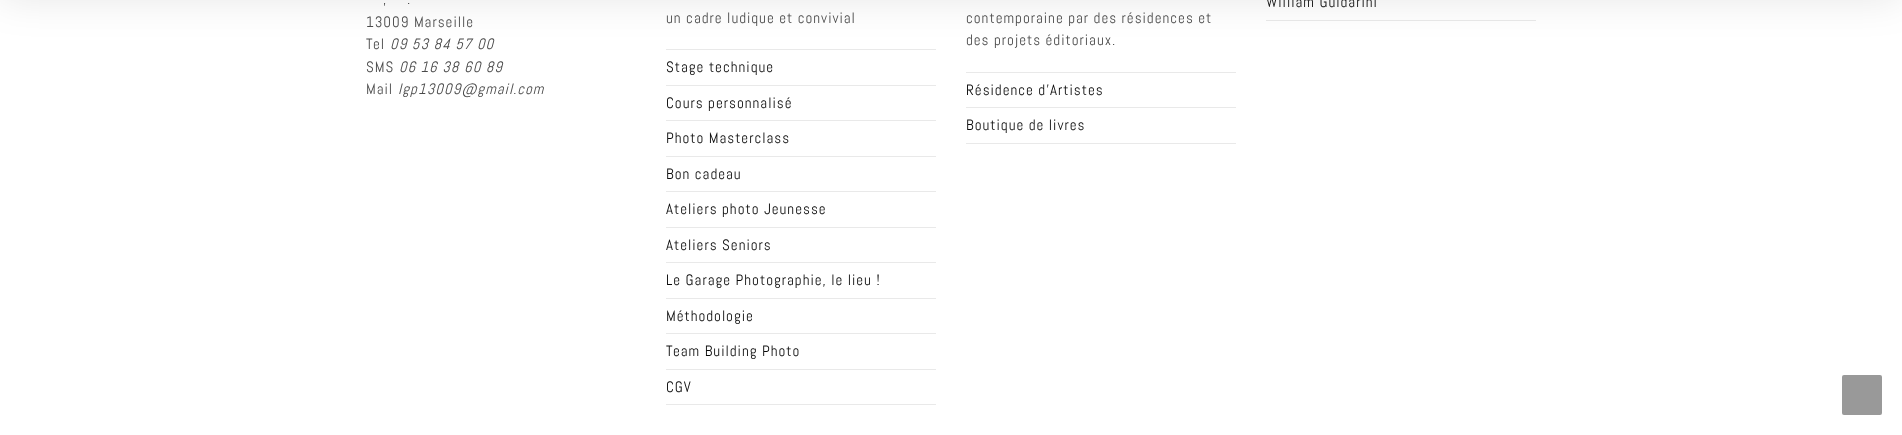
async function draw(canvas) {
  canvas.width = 1902;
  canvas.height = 435;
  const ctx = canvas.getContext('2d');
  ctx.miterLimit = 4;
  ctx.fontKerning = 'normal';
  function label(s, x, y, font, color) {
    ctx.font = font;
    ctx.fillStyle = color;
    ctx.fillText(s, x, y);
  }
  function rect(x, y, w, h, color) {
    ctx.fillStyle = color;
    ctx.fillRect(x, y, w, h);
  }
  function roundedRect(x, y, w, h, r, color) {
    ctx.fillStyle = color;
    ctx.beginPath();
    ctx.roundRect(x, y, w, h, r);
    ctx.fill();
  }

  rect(0, 0, 1902, 435, '#fff');
  rect(666, 49, 270, 1, '#e9e9e9');
  rect(1266, 20, 270, 1, '#e9e9e9');
  ctx.fillStyle = '#0000001a';
  ctx.filter = 'blur(20px)';
  ctx.beginPath();
  ctx.rect(0, -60, 1902, 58);
  ctx.fill();
  ctx.filter = 'none';
  ctx.letterSpacing = '1px';
  label(',', 383, 4, '15px Abel', '#4a4a4a');
  label('.', 407, 4, '15px Abel', '#4a4a4a');
  label('13009 Marseille', 366, 27, '15px Abel', '#4a4a4a');
  label('Tel', 366, 49, '15px Abel', '#4a4a4a');
  label('09 53 84 57 00', 390, 49, 'italic 15px Abel', '#4a4a4a');
  label('SMS', 366, 72, '15px Abel', '#4a4a4a');
  label('06 16 38 60 89', 399, 72, 'italic 15px Abel', '#4a4a4a');
  label('Mail', 366, 94, '15px Abel', '#4a4a4a');
  label('lgp13009@gmail.com', 398, 94, 'italic 15px Abel', '#4a4a4a');
  label('un cadre ludique et convivial', 666, 23, '15px Abel', '#4a4a4a');
  rect(666, 85, 270, 1, '#e9e9e9');
  label('Stage technique', 666, 72, '15px Abel', '#0a0a0a');
  rect(666, 120, 270, 1, '#e9e9e9');
  label('Cours personnalisé', 666, 108, '15px Abel', '#0a0a0a');
  rect(666, 156, 270, 1, '#e9e9e9');
  label('Photo Masterclass', 666, 143, '15px Abel', '#0a0a0a');
  rect(666, 191, 270, 1, '#e9e9e9');
  label('Bon cadeau', 666, 179, '15px Abel', '#0a0a0a');
  rect(666, 227, 270, 1, '#e9e9e9');
  label('Ateliers photo Jeunesse', 666, 214, '15px Abel', '#0a0a0a');
  rect(666, 262, 270, 1, '#e9e9e9');
  label('Ateliers Seniors', 666, 250, '15px Abel', '#0a0a0a');
  rect(666, 298, 270, 1, '#e9e9e9');
  label('Le Garage Photographie, le lieu !', 666, 285, '15px Abel', '#0a0a0a');
  rect(666, 333, 270, 1, '#e9e9e9');
  label('Méthodologie', 666, 321, '15px Abel', '#0a0a0a');
  rect(666, 369, 270, 1, '#e9e9e9');
  label('Team Building Photo', 666, 356, '15px Abel', '#0a0a0a');
  rect(666, 404, 270, 1, '#e9e9e9');
  label('CGV', 666, 392, '15px Abel', '#0a0a0a');
  label('contemporaine par des résidences et', 966, 23, '15px Abel', '#4a4a4a');
  label('des projets éditoriaux.', 966, 45, '15px Abel', '#4a4a4a');
  rect(966, 72, 270, 1, '#e9e9e9');
  rect(966, 107, 270, 1, '#e9e9e9');
  label('Résidence d’Artistes', 966, 95, '15px Abel', '#0a0a0a');
  rect(966, 143, 270, 1, '#e9e9e9');
  label('Boutique de livres', 966, 130, '15px Abel', '#0a0a0a');
  label('William Guidarini', 1266, 7, '15px Abel', '#0a0a0a');
  roundedRect(1842, 375, 40, 40, 2, '#999');
}

draw(document.querySelector('canvas'));
